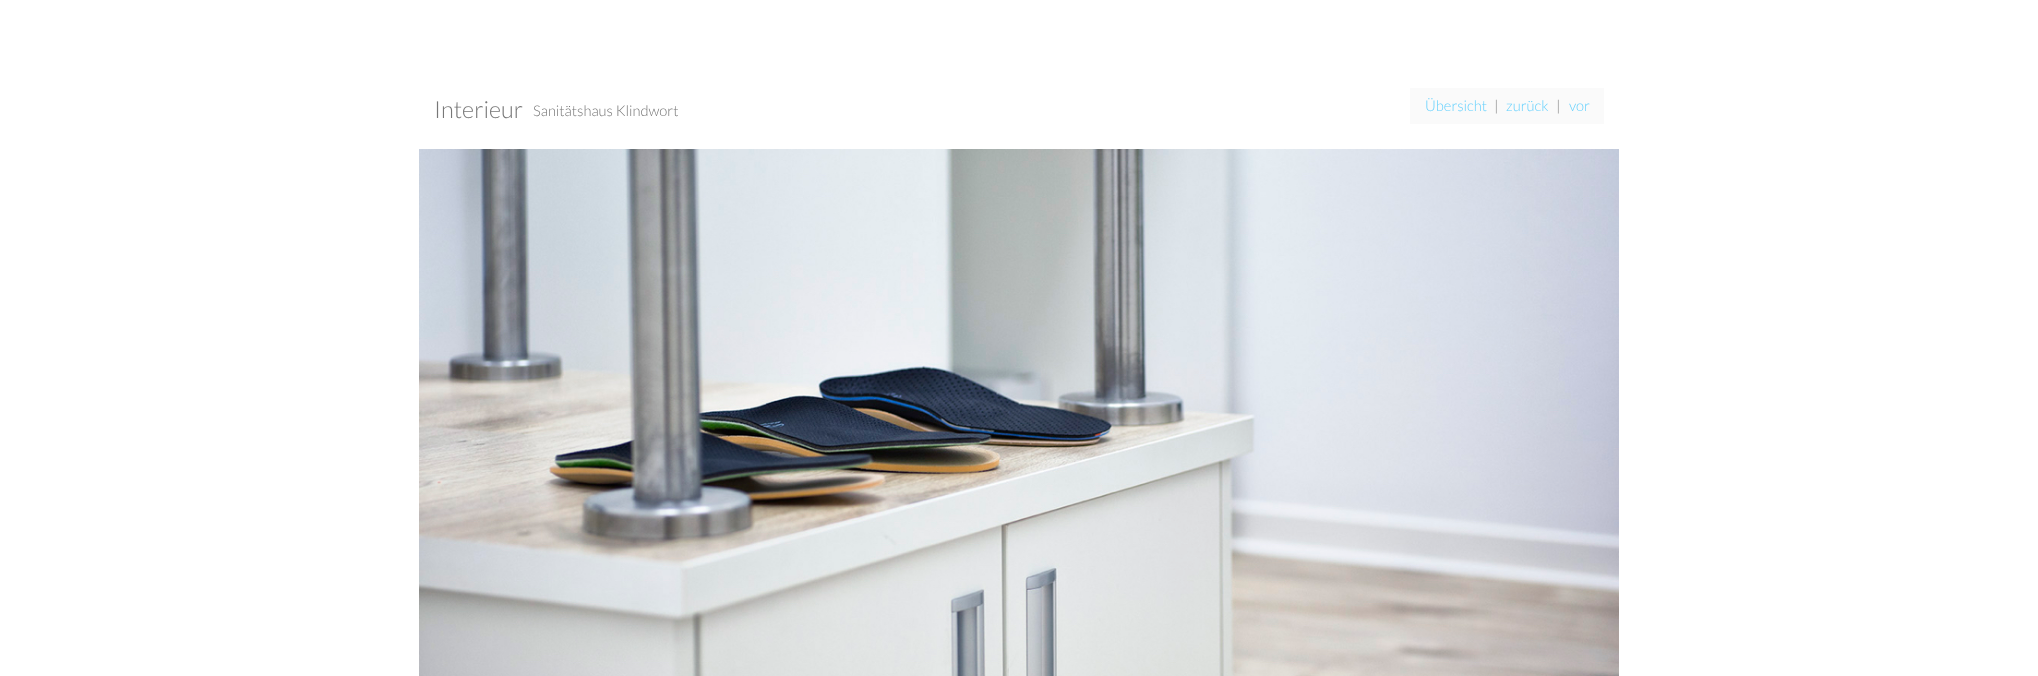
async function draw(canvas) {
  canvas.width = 2038;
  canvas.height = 676;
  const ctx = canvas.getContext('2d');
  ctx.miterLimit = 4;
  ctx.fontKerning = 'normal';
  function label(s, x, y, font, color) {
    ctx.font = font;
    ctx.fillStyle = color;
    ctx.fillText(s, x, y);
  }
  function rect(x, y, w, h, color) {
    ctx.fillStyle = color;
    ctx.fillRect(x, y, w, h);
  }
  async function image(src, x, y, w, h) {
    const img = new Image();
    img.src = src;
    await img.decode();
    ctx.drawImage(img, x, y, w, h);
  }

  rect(0, 0, 2038, 676, '#fff');
  label('Interieur', 434, 118, '300 23.5px Lato', '#777');
  label('Sanitätshaus Klindwort', 533, 116, '300 14.75px Lato', '#777');
  rect(1410, 88, 194, 36, '#fafafa');
  label('Übersicht', 1425, 111, '300 14.75px Lato', '#67d1fd');
  label('|', 1494, 111, '300 14.75px Lato', '#777');
  label('zurück', 1506, 111, '300 14.75px Lato', '#67d1fd');
  label('|', 1556, 111, '300 14.75px Lato', '#777');
  label('vor', 1569, 111, '300 14.75px Lato', '#67d1fd');
  await image('assets/img1.png', 419, 149, 1200, 527);
}

draw(document.querySelector('canvas'));
